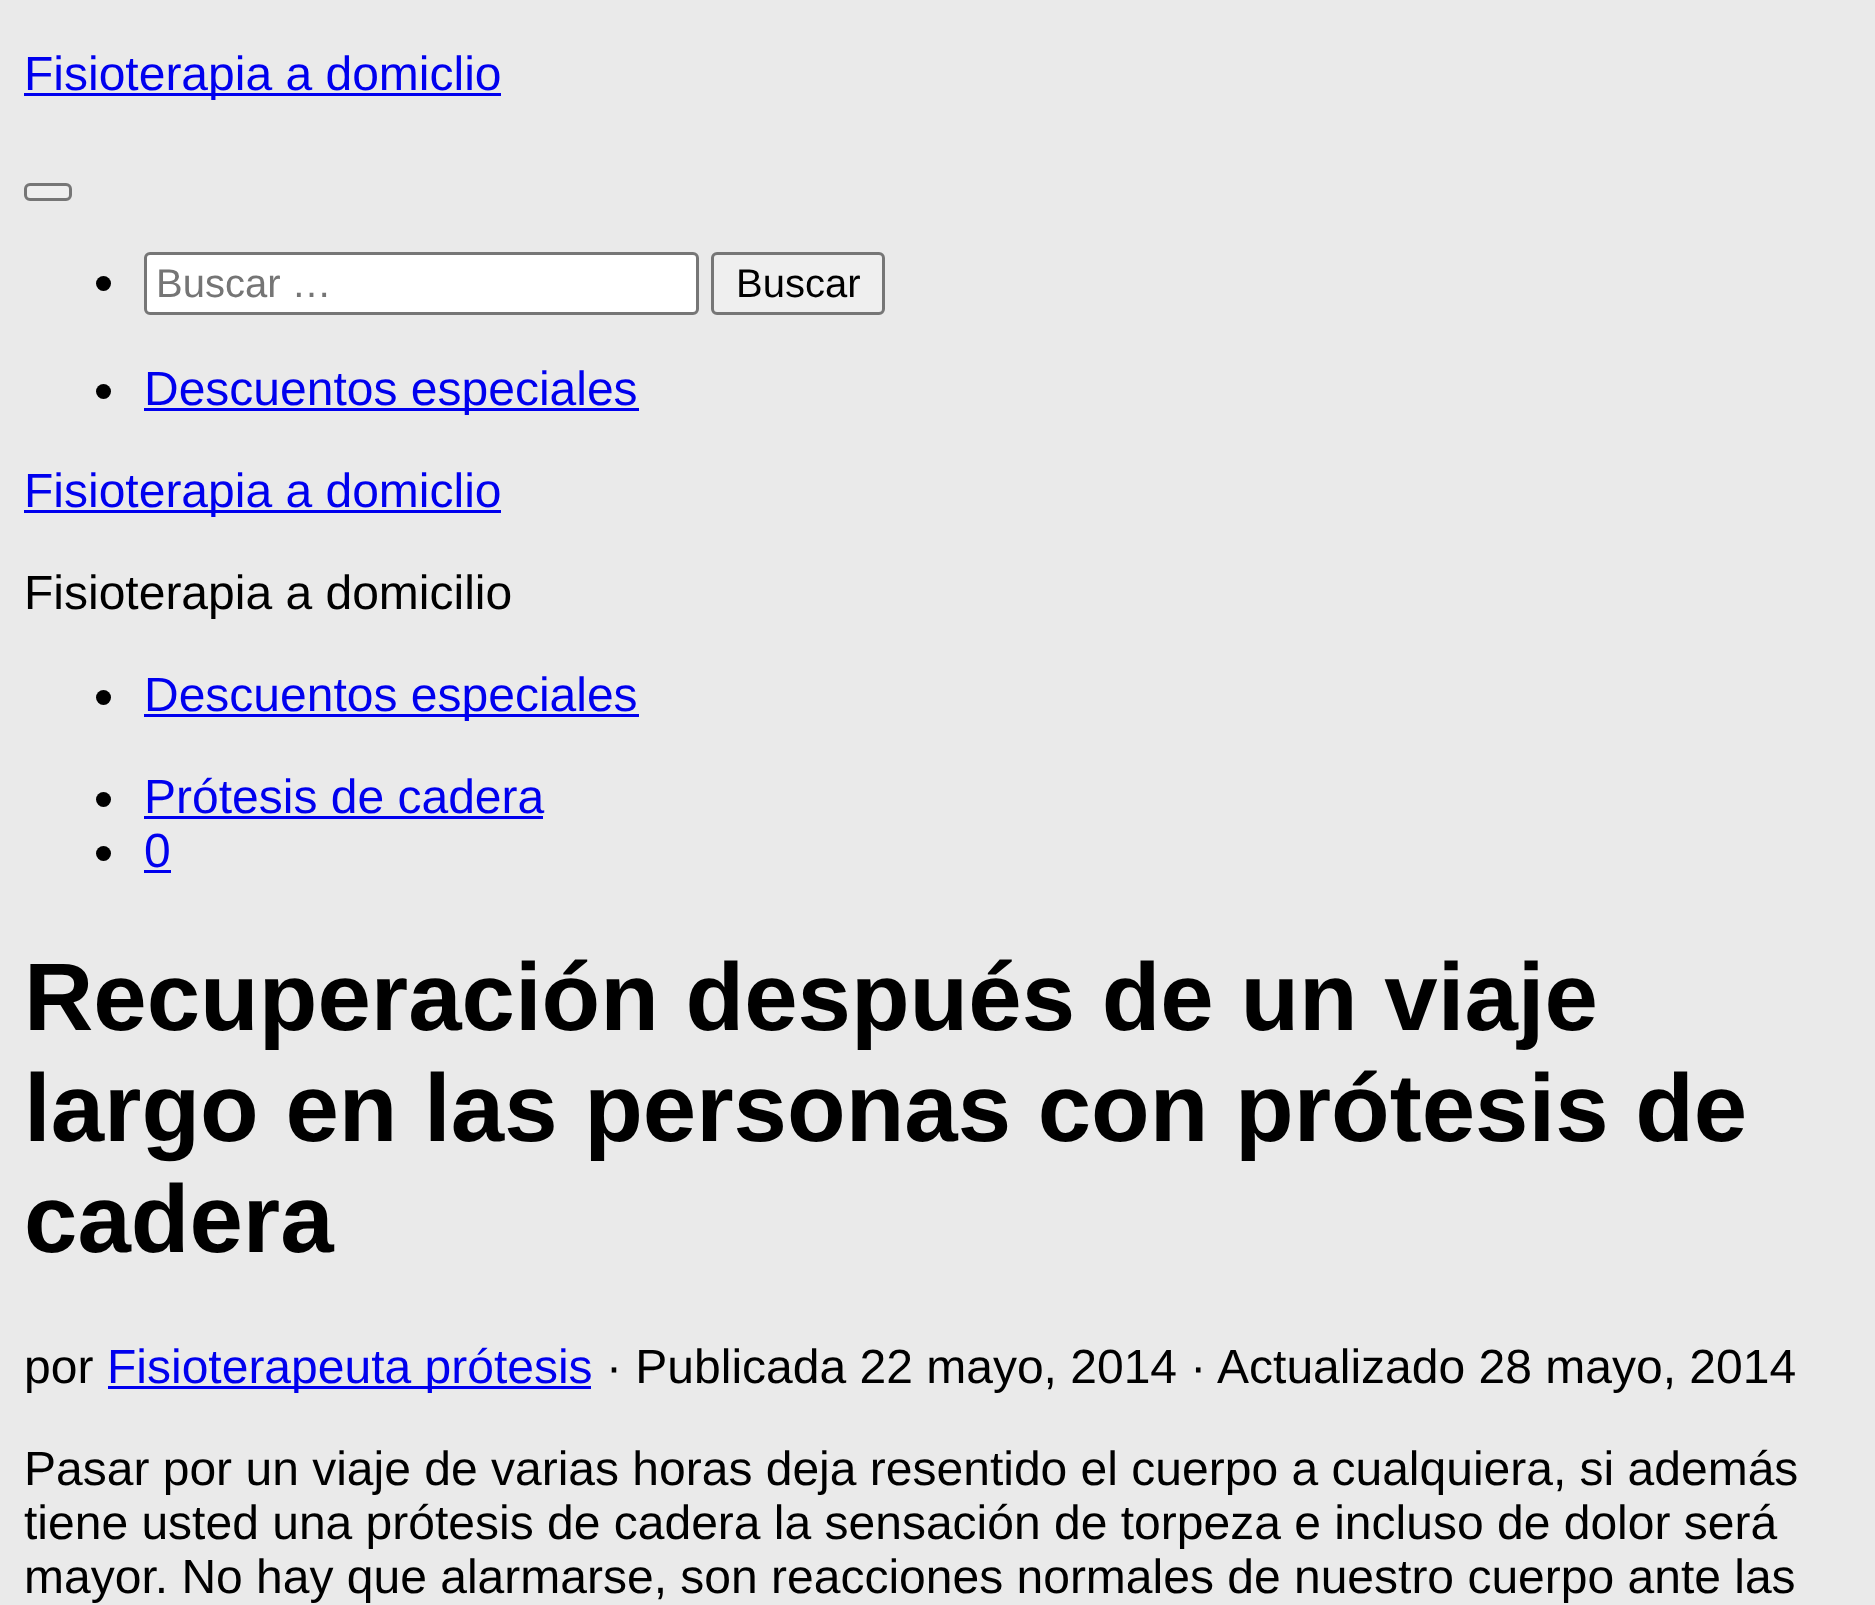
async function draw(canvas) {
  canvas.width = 1875;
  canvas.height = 1605;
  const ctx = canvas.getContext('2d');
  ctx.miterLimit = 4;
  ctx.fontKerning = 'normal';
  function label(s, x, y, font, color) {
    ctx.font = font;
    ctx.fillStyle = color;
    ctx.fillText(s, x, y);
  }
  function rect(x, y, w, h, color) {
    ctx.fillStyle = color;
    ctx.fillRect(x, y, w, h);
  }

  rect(0, 0, 1875, 1605, '#eaeaea');
  rect(24, 93, 477, 3, '#00e');
  label('Fisioterapia a domiclio', 24, 90, '48px Liberation Sans', '#00e');
  ctx.fillStyle = '#efefef';
  ctx.beginPath();
  ctx.roundRect(25.5, 184.5, 45, 15, 4.5);
  ctx.fill();
  ctx.strokeStyle = '#767676';
  ctx.lineWidth = 3;
  ctx.stroke();
  ctx.fillStyle = '#000';
  ctx.beginPath();
  ctx.arc(103.5, 283.5, 7.5, 0, 2 * Math.PI);
  ctx.fill();
  ctx.fillStyle = '#fff';
  ctx.beginPath();
  ctx.roundRect(145.5, 253.5, 552, 60, 4.5);
  ctx.fill();
  ctx.stroke();
  label('Buscar …', 156, 297, '40px Liberation Sans', '#757575');
  ctx.fillStyle = '#efefef';
  ctx.beginPath();
  ctx.roundRect(712.5, 253.5, 171, 60, 4.5);
  ctx.fill();
  ctx.stroke();
  label('Buscar', 736, 297, '40px Liberation Sans', '#000');
  ctx.beginPath();
  ctx.arc(103.5, 391.5, 7.5, 0, 2 * Math.PI);
  ctx.fill();
  rect(144, 408, 495, 3, '#00e');
  label('Descuentos especiales', 144, 405, '48px Liberation Sans', '#00e');
  rect(24, 510, 477, 3, '#00e');
  label('Fisioterapia a domiclio', 24, 507, '48px Liberation Sans', '#00e');
  label('Fisioterapia a domicilio', 24, 609, '48px Liberation Sans', '#000');
  ctx.beginPath();
  ctx.arc(103.5, 697.5, 7.5, 0, 2 * Math.PI);
  ctx.fill();
  rect(144, 714, 495, 3, '#00e');
  label('Descuentos especiales', 144, 711, '48px Liberation Sans', '#00e');
  ctx.fillStyle = '#000';
  ctx.beginPath();
  ctx.arc(103.5, 799.5, 7.5, 0, 2 * Math.PI);
  ctx.fill();
  label('Prótesis de cadera', 144, 813, '48px Liberation Sans', '#00e');
  rect(144, 816, 399, 3, '#00e');
  ctx.fillStyle = '#000';
  ctx.beginPath();
  ctx.arc(103.5, 853.5, 7.5, 0, 2 * Math.PI);
  ctx.fill();
  label('0', 144, 867, '48px Liberation Sans', '#00e');
  rect(144, 870, 27, 3, '#00e');
  label('Recuperación después de un viaje', 24, 1030, 'bold 96px Liberation Sans', '#000');
  label('largo en las personas con prótesis de', 24, 1141, 'bold 96px Liberation Sans', '#000');
  label('cadera', 24, 1252, 'bold 96px Liberation Sans', '#000');
  label('por', 24, 1383, '48px Liberation Sans', '#000');
  rect(108, 1386, 483, 3, '#00e');
  label('Fisioterapeuta prótesis', 107, 1383, '48px Liberation Sans', '#00e');
  label('· Publicada 22 mayo, 2014 · Actualizado 28 mayo, 2014', 606, 1383, '48px Liberation Sans', '#000');
  label('Pasar por un viaje de varias horas deja resentido el cuerpo a cualquiera, si además', 24, 1485, '48px Liberation Sans', '#000');
  label('tiene usted una prótesis de cadera la sensación de torpeza e incluso de dolor será', 24, 1539, '48px Liberation Sans', '#000');
  label('mayor. No hay que alarmarse, son reacciones normales de nuestro cuerpo ante las', 24, 1593, '48px Liberation Sans', '#000');
}

draw(document.querySelector('canvas'));
